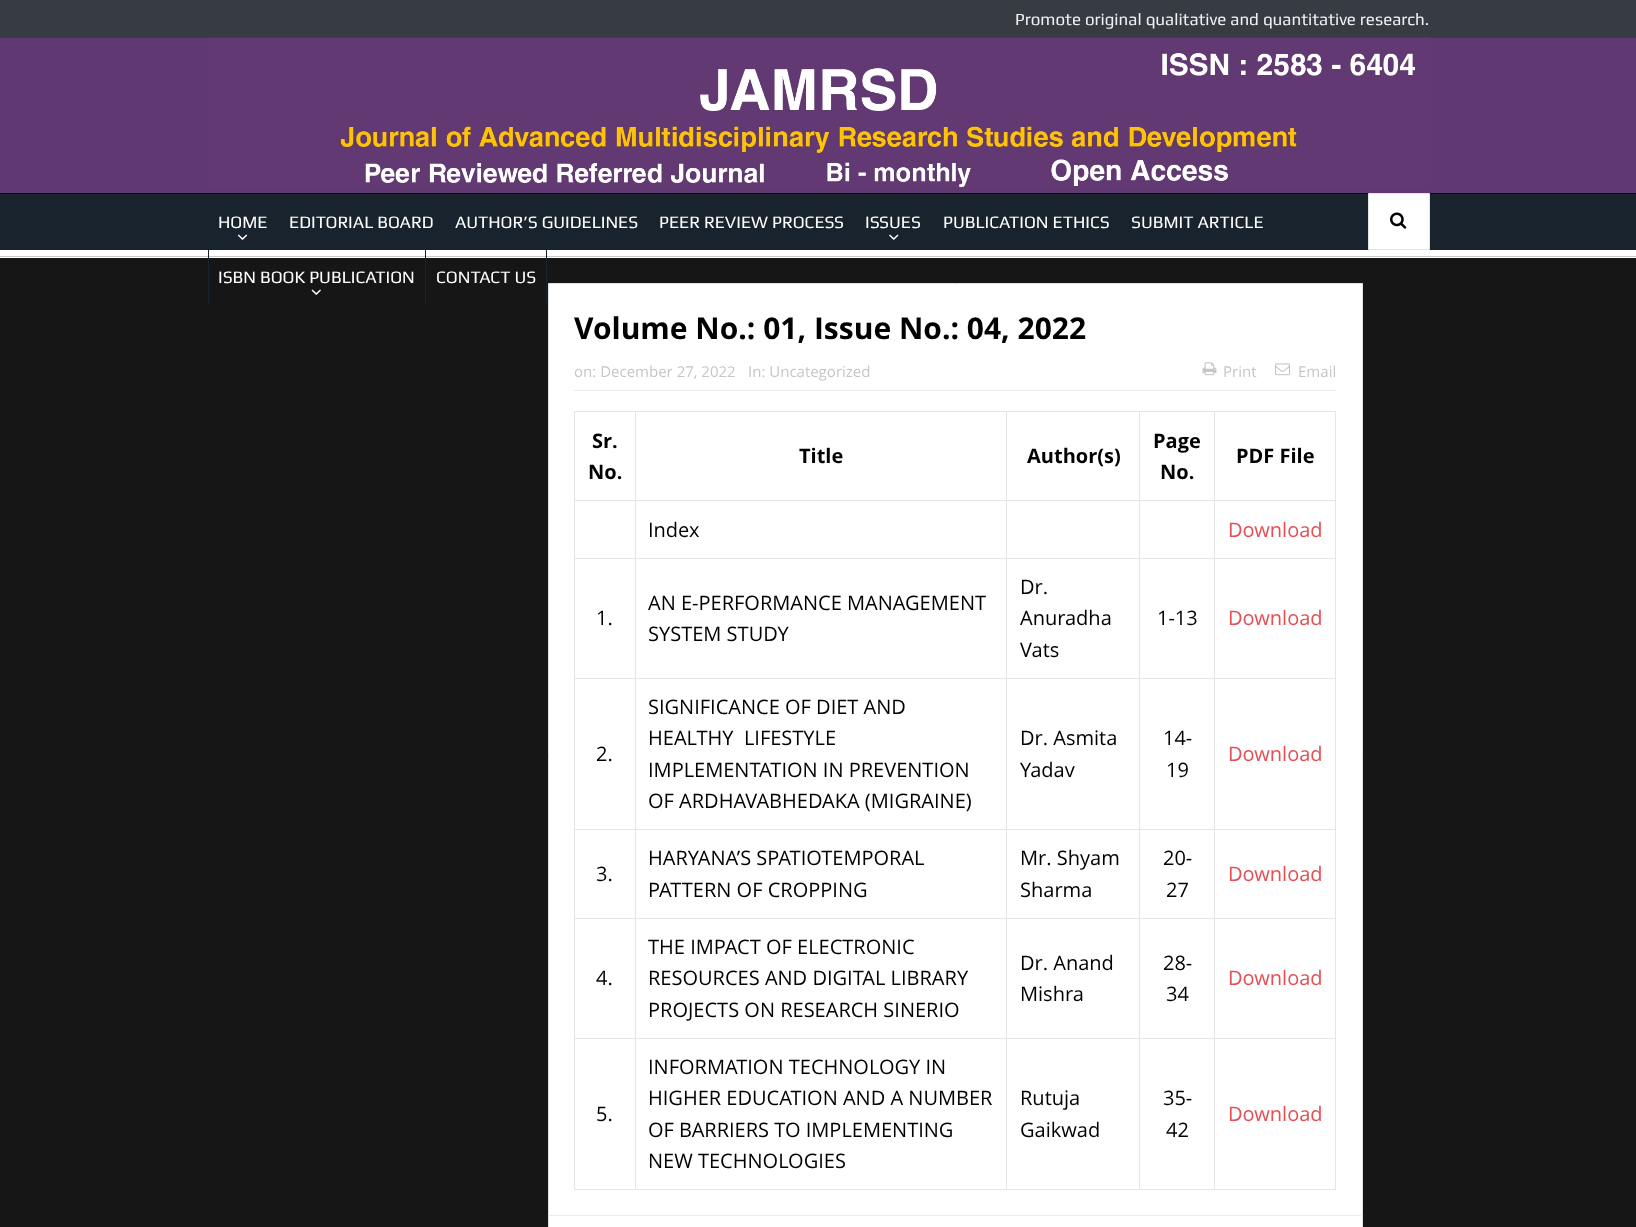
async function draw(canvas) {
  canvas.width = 1636;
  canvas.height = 1227;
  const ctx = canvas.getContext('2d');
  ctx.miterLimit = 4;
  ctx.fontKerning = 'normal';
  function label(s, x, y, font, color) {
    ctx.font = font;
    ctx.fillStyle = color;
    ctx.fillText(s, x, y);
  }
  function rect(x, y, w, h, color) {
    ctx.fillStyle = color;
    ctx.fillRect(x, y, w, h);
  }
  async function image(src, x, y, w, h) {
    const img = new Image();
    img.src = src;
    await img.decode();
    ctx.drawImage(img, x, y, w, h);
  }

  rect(0, 0, 1636, 1227, '#161616');
  rect(0, 0, 1636, 38, '#373c43');
  label('Promote original qualitative and quantitative research.', 1015, 25, '17px Play', '#f0f0f0');
  rect(0, 38, 1636, 155, '#613972');
  await image('assets/img1.png', 207, 37, 1223, 151);
  rect(0, 250, 1636, 8, '#fff');
  rect(0, 193, 1636, 1, '#000');
  rect(0, 256, 1636, 1, '#c8c8c8');
  rect(0, 194, 1636, 56, '#19232d');
  label('HOME', 218, 228, '17.5px Play', '#fff');
  await image('assets/img2.png', 237, 234, 11, 6);
  label('EDITORIAL BOARD', 289, 228, '17.5px Play', '#fff');
  label('AUTHOR’S GUIDELINES', 455, 228, '17.5px Play', '#fff');
  label('PEER REVIEW PROCESS', 659, 228, '17.5px Play', '#fff');
  label('ISSUES', 865, 228, '17.5px Play', '#fff');
  await image('assets/img3.png', 889, 234, 10, 6);
  label('PUBLICATION ETHICS', 943, 228, '17.5px Play', '#fff');
  label('SUBMIT ARTICLE', 1131, 228, '17.5px Play', '#fff');
  rect(208, 249, 1, 55, '#19232d');
  label('ISBN BOOK PUBLICATION', 218, 283, '17.5px Play', '#fff');
  await image('assets/img4.png', 311, 289, 10, 6);
  rect(546, 249, 1, 55, '#19232d');
  rect(425, 249, 1, 55, '#19232d');
  label('CONTACT US', 436, 283, '17.5px Play', '#fff');
  ctx.beginPath();
  ctx.rect(1368.5, 193.5, 61, 56);
  ctx.fill();
  ctx.strokeStyle = '#e4e4e4';
  ctx.stroke();
  await image('assets/img5.png', 1390, 212, 17, 17);
  ctx.beginPath();
  ctx.rect(548.5, 283.5, 814, 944);
  ctx.fill();
  ctx.strokeStyle = '#e0e0e0';
  ctx.stroke();
  label('Volume No.: 01, Issue No.: 04, 2022', 574, 339, 'bold 30px Open Sans', '#000');
  rect(574, 390, 762, 1, '#eaeaea');
  label('on: December 27, 2022', 574, 377, '15px Open Sans', '#c6c6c6');
  label('In: Uncategorized', 748, 377, '15px Open Sans', '#c6c6c6');
  await image('assets/img6.png', 1202, 362, 15, 14);
  label('Print', 1223, 377, '15px Open Sans', '#c6c6c6');
  await image('assets/img7.png', 1275, 363, 15, 13);
  label('Email', 1298, 377, '15px Open Sans', '#c6c6c6');
  rect(1214, 411, 122, 1, '#e5e5e5');
  rect(1214, 500, 122, 1, '#e5e5e5');
  rect(1214, 558, 122, 1, '#e5e5e5');
  rect(1214, 678, 122, 1, '#e5e5e5');
  rect(1214, 829, 122, 1, '#e5e5e5');
  rect(1214, 918, 122, 1, '#e5e5e5');
  rect(1214, 1038, 122, 1, '#e5e5e5');
  rect(1335, 1038, 1, 152, '#e5e5e5');
  rect(1214, 1189, 122, 1, '#e5e5e5');
  rect(1214, 1038, 1, 152, '#e5e5e5');
  rect(1139, 1038, 76, 1, '#e5e5e5');
  rect(1214, 918, 1, 121, '#e5e5e5');
  rect(1139, 918, 76, 1, '#e5e5e5');
  rect(1214, 829, 1, 90, '#e5e5e5');
  rect(1139, 829, 76, 1, '#e5e5e5');
  rect(1214, 678, 1, 152, '#e5e5e5');
  rect(1139, 678, 76, 1, '#e5e5e5');
  rect(1214, 558, 1, 121, '#e5e5e5');
  rect(1139, 558, 76, 1, '#e5e5e5');
  rect(1214, 500, 1, 59, '#e5e5e5');
  rect(1139, 500, 76, 1, '#e5e5e5');
  rect(1214, 411, 1, 90, '#e5e5e5');
  rect(1139, 411, 76, 1, '#e5e5e5');
  rect(1139, 1189, 76, 1, '#e5e5e5');
  rect(1139, 1038, 1, 152, '#e5e5e5');
  rect(1006, 1038, 134, 1, '#e5e5e5');
  rect(1139, 918, 1, 121, '#e5e5e5');
  rect(1006, 918, 134, 1, '#e5e5e5');
  rect(1139, 829, 1, 90, '#e5e5e5');
  rect(1006, 829, 134, 1, '#e5e5e5');
  rect(1139, 678, 1, 152, '#e5e5e5');
  rect(1006, 678, 134, 1, '#e5e5e5');
  rect(1139, 558, 1, 121, '#e5e5e5');
  rect(1006, 558, 134, 1, '#e5e5e5');
  rect(1139, 500, 1, 59, '#e5e5e5');
  rect(1006, 500, 134, 1, '#e5e5e5');
  rect(1139, 411, 1, 90, '#e5e5e5');
  rect(1006, 411, 134, 1, '#e5e5e5');
  rect(1006, 1189, 134, 1, '#e5e5e5');
  rect(1006, 1038, 1, 152, '#e5e5e5');
  rect(635, 1038, 373, 1, '#e5e5e5');
  rect(1006, 918, 1, 121, '#e5e5e5');
  rect(635, 918, 373, 1, '#e5e5e5');
  rect(1006, 829, 1, 90, '#e5e5e5');
  rect(635, 829, 373, 1, '#e5e5e5');
  rect(1006, 678, 1, 152, '#e5e5e5');
  rect(635, 678, 373, 1, '#e5e5e5');
  rect(1006, 558, 1, 121, '#e5e5e5');
  rect(635, 558, 373, 1, '#e5e5e5');
  rect(1006, 500, 1, 59, '#e5e5e5');
  rect(635, 500, 373, 1, '#e5e5e5');
  rect(1006, 411, 1, 90, '#e5e5e5');
  rect(635, 411, 373, 1, '#e5e5e5');
  rect(635, 1189, 373, 1, '#e5e5e5');
  rect(635, 1038, 1, 152, '#e5e5e5');
  rect(574, 1038, 62, 1, '#e5e5e5');
  rect(635, 918, 1, 121, '#e5e5e5');
  rect(574, 918, 62, 1, '#e5e5e5');
  rect(635, 829, 1, 90, '#e5e5e5');
  rect(574, 829, 62, 1, '#e5e5e5');
  rect(635, 678, 1, 152, '#e5e5e5');
  rect(574, 678, 62, 1, '#e5e5e5');
  rect(635, 558, 1, 121, '#e5e5e5');
  rect(574, 558, 62, 1, '#e5e5e5');
  rect(635, 500, 1, 59, '#e5e5e5');
  rect(574, 500, 62, 1, '#e5e5e5');
  rect(635, 411, 1, 90, '#e5e5e5');
  rect(574, 411, 62, 1, '#e5e5e5');
  rect(574, 1189, 62, 1, '#e5e5e5');
  rect(574, 1038, 1, 152, '#e5e5e5');
  rect(574, 918, 1, 121, '#e5e5e5');
  rect(574, 829, 1, 90, '#e5e5e5');
  rect(574, 678, 1, 152, '#e5e5e5');
  rect(574, 558, 1, 121, '#e5e5e5');
  rect(574, 500, 1, 59, '#e5e5e5');
  rect(574, 411, 1, 90, '#e5e5e5');
  label('Sr.', 592, 448, 'bold 20px Open Sans', '#000');
  label('No.', 588, 479, 'bold 20px Open Sans', '#000');
  label('Title', 799, 463, 'bold 20px Open Sans', '#000');
  label('Author(s)', 1027, 463, 'bold 20px Open Sans', '#000');
  label('Page', 1153, 448, 'bold 20px Open Sans', '#000');
  label('No.', 1160, 479, 'bold 20px Open Sans', '#000');
  rect(1335, 918, 1, 121, '#e5e5e5');
  rect(1335, 829, 1, 90, '#e5e5e5');
  rect(1335, 678, 1, 152, '#e5e5e5');
  rect(1335, 558, 1, 121, '#e5e5e5');
  rect(1335, 500, 1, 59, '#e5e5e5');
  rect(1335, 411, 1, 90, '#e5e5e5');
  label('PDF File', 1236, 463, 'bold 20px Open Sans', '#000');
  label('Index', 648, 537, '20px Open Sans', '#000');
  label('Download', 1228, 537, '20px Open Sans', '#e54e53');
  label('1.', 596, 625, '20px Open Sans', '#000');
  label('AN E-PERFORMANCE MANAGEMENT', 648, 610, '20px Open Sans', '#000');
  label('SYSTEM STUDY', 648, 641, '20px Open Sans', '#000');
  label('Dr.', 1020, 594, '20px Open Sans', '#000');
  label('Anuradha', 1020, 625, '20px Open Sans', '#000');
  label('Vats', 1020, 657, '20px Open Sans', '#000');
  label('1-13', 1157, 625, '20px Open Sans', '#000');
  label('Download', 1228, 625, '20px Open Sans', '#e54e53');
  label('2.', 596, 761, '20px Open Sans', '#000');
  label('SIGNIFICANCE OF DIET AND', 648, 714, '20px Open Sans', '#000');
  label('HEALTHY  LIFESTYLE', 648, 745, '20px Open Sans', '#000');
  label('IMPLEMENTATION IN PREVENTION', 648, 777, '20px Open Sans', '#000');
  label('OF ARDHAVABHEDAKA (MIGRAINE)', 648, 808, '20px Open Sans', '#000');
  label('Dr. Asmita', 1020, 745, '20px Open Sans', '#000');
  label('Yadav', 1020, 777, '20px Open Sans', '#000');
  label('14-', 1163, 745, '20px Open Sans', '#000');
  label('19', 1166, 777, '20px Open Sans', '#000');
  label('Download', 1228, 761, '20px Open Sans', '#e54e53');
  label('3.', 596, 881, '20px Open Sans', '#000');
  label('HARYANA’S SPATIOTEMPORAL', 648, 865, '20px Open Sans', '#000');
  label('PATTERN OF CROPPING', 648, 897, '20px Open Sans', '#000');
  label('Mr. Shyam', 1020, 865, '20px Open Sans', '#000');
  label('Sharma', 1020, 897, '20px Open Sans', '#000');
  label('20-', 1163, 865, '20px Open Sans', '#000');
  label('27', 1166, 897, '20px Open Sans', '#000');
  label('Download', 1228, 881, '20px Open Sans', '#e54e53');
  label('4.', 596, 985, '20px Open Sans', '#000');
  label('THE IMPACT OF ELECTRONIC', 648, 954, '20px Open Sans', '#000');
  label('RESOURCES AND DIGITAL LIBRARY', 648, 985, '20px Open Sans', '#000');
  label('PROJECTS ON RESEARCH SINERIO', 648, 1017, '20px Open Sans', '#000');
  label('Dr. Anand', 1020, 970, '20px Open Sans', '#000');
  label('Mishra', 1020, 1001, '20px Open Sans', '#000');
  label('28-', 1163, 970, '20px Open Sans', '#000');
  label('34', 1166, 1001, '20px Open Sans', '#000');
  label('Download', 1228, 985, '20px Open Sans', '#e54e53');
  label('5.', 596, 1121, '20px Open Sans', '#000');
  label('INFORMATION TECHNOLOGY IN', 648, 1074, '20px Open Sans', '#000');
  label('HIGHER EDUCATION AND A NUMBER', 648, 1105, '20px Open Sans', '#000');
  label('OF BARRIERS TO IMPLEMENTING', 648, 1137, '20px Open Sans', '#000');
  label('NEW TECHNOLOGIES', 648, 1168, '20px Open Sans', '#000');
  label('Rutuja', 1020, 1105, '20px Open Sans', '#000');
  label('Gaikwad', 1020, 1137, '20px Open Sans', '#000');
  label('35-', 1163, 1105, '20px Open Sans', '#000');
  label('42', 1166, 1137, '20px Open Sans', '#000');
  label('Download', 1228, 1121, '20px Open Sans', '#e54e53');
  rect(549, 1215, 812, 1, '#eaeaea');
}

draw(document.querySelector('canvas'));
